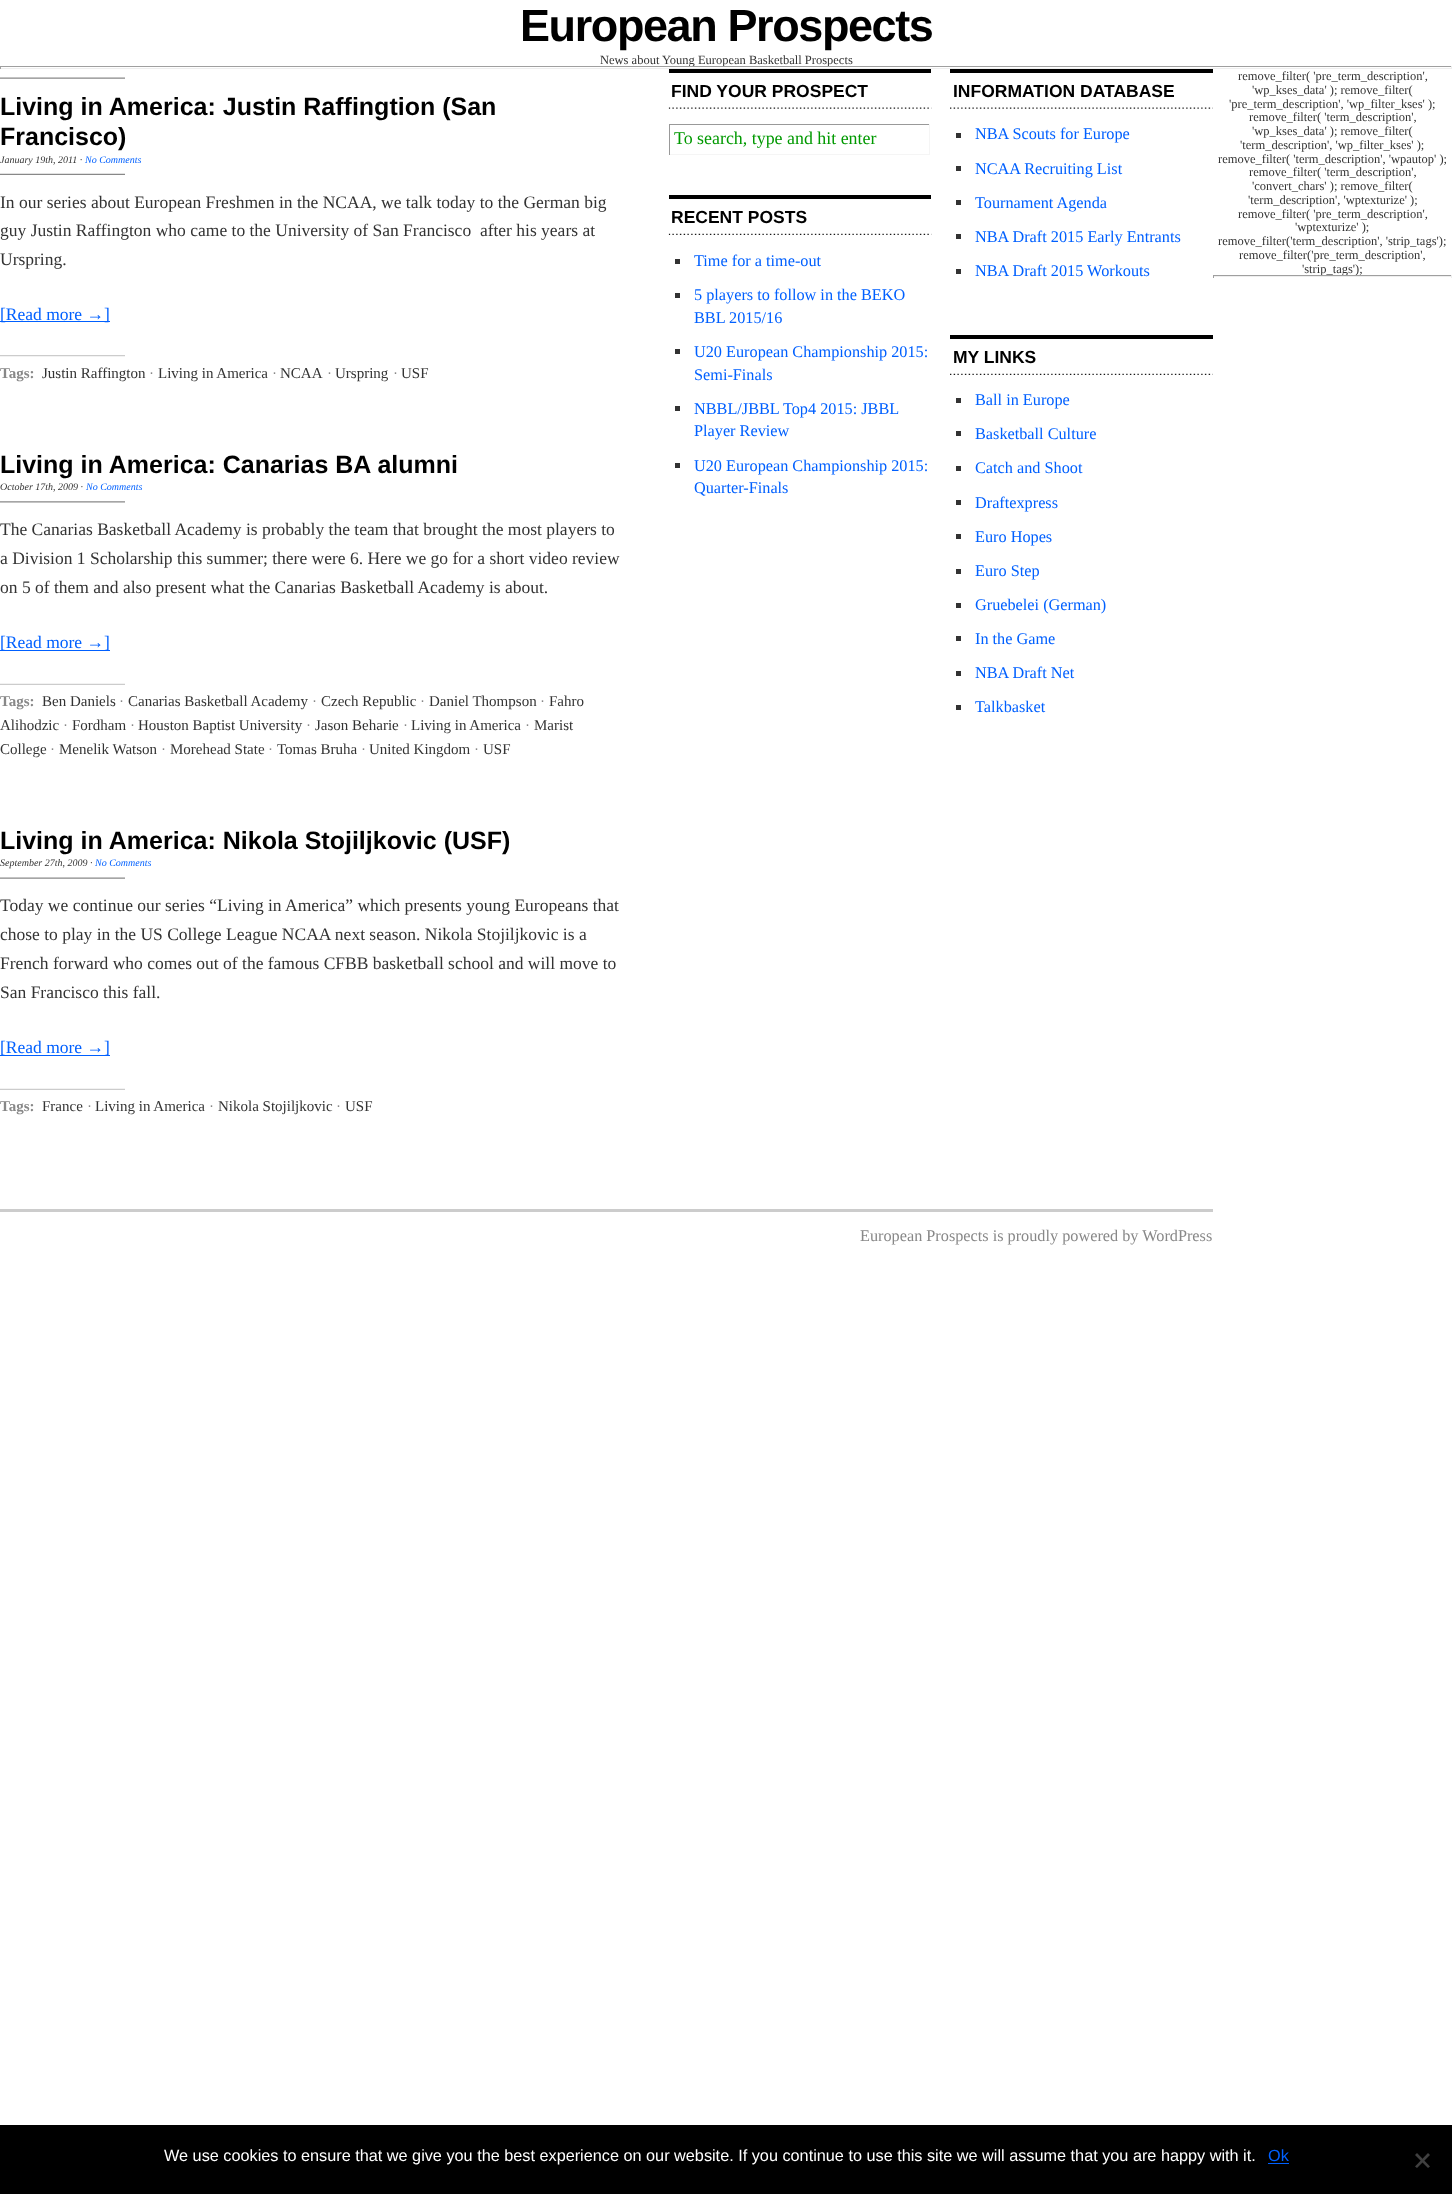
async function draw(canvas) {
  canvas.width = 1452;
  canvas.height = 2194;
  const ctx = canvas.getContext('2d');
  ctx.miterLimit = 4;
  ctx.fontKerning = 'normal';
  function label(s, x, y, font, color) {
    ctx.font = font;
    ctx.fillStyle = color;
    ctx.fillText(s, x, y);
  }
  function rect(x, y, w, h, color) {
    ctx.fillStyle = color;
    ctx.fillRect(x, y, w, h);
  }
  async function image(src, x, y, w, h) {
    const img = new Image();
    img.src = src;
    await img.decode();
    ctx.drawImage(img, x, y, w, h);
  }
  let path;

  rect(0, 0, 1452, 2194, '#fff');
  ctx.letterSpacing = '-1.4px';
  label('European Prospects', 520, 41, 'bold 45px Liberation Sans', '#000');
  ctx.letterSpacing = '0px';
  label('News about Young European Basketball Prospects', 600, 64, '12.5px Liberation Serif', '#333');
  rect(0, 66, 1452, 1, '#9f9f9f');
  rect(1451, 66, 1, 3, '#eee');
  rect(0, 68, 1452, 1, '#eee');
  rect(0, 66, 1, 3, '#9f9f9f');
  label('remove_filter( \'pre_term_description\',', 1238, 80, '12.5px Liberation Serif', '#333');
  await image('assets/img1.png', 0, 77, 125, 2);
  label('Living in America: Justin Raffingtion (San', 0, 115, 'bold 25px Liberation Sans', '#000');
  label('Francisco)', 0, 145, 'bold 25px Liberation Sans', '#000');
  await image('assets/img2.png', 0, 173, 125, 2);
  label('January 19th, 2011 ·', 0, 163, 'italic 10px Liberation Serif', '#333');
  label('No Comments', 85, 163, 'italic 10px Liberation Serif', '#0060ff');
  label('In our series about European Freshmen in the NCAA, we talk today to the German big', 0, 208, '17.5px Liberation Serif', '#333');
  label('guy Justin Raffington who came to the University of San Francisco  after his years at', 0, 236, '17.5px Liberation Serif', '#333');
  label('Urspring.', 0, 265, '17.5px Liberation Serif', '#333');
  rect(0, 321, 110, 1, '#0060ff');
  label('[Read more →]', 0, 320, '17.5px Liberation Serif', '#0060ff');
  await image('assets/img3.png', 0, 355, 125, 2);
  label('Tags:', 0, 378, 'bold 15px Liberation Serif', '#888');
  label('Justin Raffington', 42, 378, '15px Liberation Serif', '#333');
  label('·', 149, 378, '15px Liberation Serif', '#888');
  label('Living in America', 158, 378, '15px Liberation Serif', '#333');
  label('·', 272, 378, '15px Liberation Serif', '#888');
  label('NCAA', 280, 378, '15px Liberation Serif', '#333');
  label('·', 327, 378, '15px Liberation Serif', '#888');
  label('Urspring', 335, 378, '15px Liberation Serif', '#333');
  label('·', 393, 378, '15px Liberation Serif', '#888');
  label('USF', 401, 378, '15px Liberation Serif', '#333');
  label('Living in America: Canarias BA alumni', 0, 473, 'bold 25px Liberation Sans', '#000');
  await image('assets/img4.png', 0, 501, 125, 2);
  label('October 17th, 2009 ·', 0, 490, 'italic 10px Liberation Serif', '#333');
  label('No Comments', 86, 490, 'italic 10px Liberation Serif', '#0060ff');
  label('The Canarias Basketball Academy is probably the team that brought the most players to', 0, 535, '17.5px Liberation Serif', '#333');
  label('a Division 1 Scholarship this summer; there were 6. Here we go for a short video review', 0, 564, '17.5px Liberation Serif', '#333');
  label('on 5 of them and also present what the Canarias Basketball Academy is about.', 0, 593, '17.5px Liberation Serif', '#333');
  rect(0, 650, 110, 1, '#0060ff');
  label('[Read more →]', 0, 648, '17.5px Liberation Serif', '#0060ff');
  await image('assets/img5.png', 0, 683, 125, 2);
  label('Tags:', 0, 706, 'bold 15px Liberation Serif', '#888');
  label('Ben Daniels', 42, 706, '15px Liberation Serif', '#333');
  label('·', 119, 706, '15px Liberation Serif', '#888');
  label('Canarias Basketball Academy', 128, 706, '15px Liberation Serif', '#333');
  label('·', 312, 706, '15px Liberation Serif', '#888');
  label('Czech Republic', 321, 706, '15px Liberation Serif', '#333');
  label('·', 420, 706, '15px Liberation Serif', '#888');
  label('Daniel Thompson', 429, 706, '15px Liberation Serif', '#333');
  label('·', 540, 706, '15px Liberation Serif', '#888');
  label('Fahro', 549, 706, '15px Liberation Serif', '#333');
  label('Alihodzic', 0, 730, '15px Liberation Serif', '#333');
  label('·', 63, 730, '15px Liberation Serif', '#888');
  label('Fordham', 72, 730, '15px Liberation Serif', '#333');
  label('·', 130, 730, '15px Liberation Serif', '#888');
  label('Houston Baptist University', 138, 730, '15px Liberation Serif', '#333');
  label('·', 306, 730, '15px Liberation Serif', '#888');
  label('Jason Beharie', 315, 730, '15px Liberation Serif', '#333');
  label('·', 403, 730, '15px Liberation Serif', '#888');
  label('Living in America', 411, 730, '15px Liberation Serif', '#333');
  label('·', 525, 730, '15px Liberation Serif', '#888');
  label('Marist', 534, 730, '15px Liberation Serif', '#333');
  label('College', 0, 754, '15px Liberation Serif', '#333');
  label('·', 50, 754, '15px Liberation Serif', '#888');
  label('Menelik Watson', 59, 754, '15px Liberation Serif', '#333');
  label('·', 161, 754, '15px Liberation Serif', '#888');
  label('Morehead State', 170, 754, '15px Liberation Serif', '#333');
  label('·', 268, 754, '15px Liberation Serif', '#888');
  label('Tomas Bruha', 277, 754, '15px Liberation Serif', '#333');
  label('·', 361, 754, '15px Liberation Serif', '#888');
  label('United Kingdom', 369, 754, '15px Liberation Serif', '#333');
  label('·', 474, 754, '15px Liberation Serif', '#888');
  label('USF', 483, 754, '15px Liberation Serif', '#333');
  label('Living in America: Nikola Stojiljkovic (USF)', 0, 849, 'bold 25px Liberation Sans', '#000');
  await image('assets/img1.png', 0, 877, 125, 2);
  label('September 27th, 2009 ·', 0, 866, 'italic 10px Liberation Serif', '#333');
  label('No Comments', 95, 866, 'italic 10px Liberation Serif', '#0060ff');
  label('Today we continue our series “Living in America” which presents young Europeans that', 0, 911, '17.5px Liberation Serif', '#333');
  label('chose to play in the US College League NCAA next season. Nikola Stojiljkovic is a', 0, 940, '17.5px Liberation Serif', '#333');
  label('French forward who comes out of the famous CFBB basketball school and will move to', 0, 969, '17.5px Liberation Serif', '#333');
  label('San Francisco this fall.', 0, 998, '17.5px Liberation Serif', '#333');
  rect(0, 1055, 110, 1, '#0060ff');
  label('[Read more →]', 0, 1053, '17.5px Liberation Serif', '#0060ff');
  await image('assets/img5.png', 0, 1088, 125, 2);
  label('Tags:', 0, 1111, 'bold 15px Liberation Serif', '#888');
  label('France', 42, 1111, '15px Liberation Serif', '#333');
  label('·', 87, 1111, '15px Liberation Serif', '#888');
  label('Living in America', 95, 1111, '15px Liberation Serif', '#333');
  label('·', 209, 1111, '15px Liberation Serif', '#888');
  label('Nikola Stojiljkovic', 218, 1111, '15px Liberation Serif', '#333');
  label('·', 336, 1111, '15px Liberation Serif', '#888');
  label('USF', 345, 1111, '15px Liberation Serif', '#333');
  await image('assets/img6.png', 668, 107, 264, 2);
  rect(669, 69, 262, 4, '#000');
  label('FIND YOUR PROSPECT', 671, 97, 'bold 17.5px Liberation Sans', '#000');
  rect(669, 124, 261, 1, '#999');
  rect(929, 124, 1, 31, '#f5f5f5');
  rect(669, 154, 261, 1, '#f5f5f5');
  rect(669, 124, 1, 31, '#999');
  label('To search, type and hit enter', 674, 144, '17.9px Liberation Serif', '#090');
  await image('assets/img7.png', 668, 233, 264, 2);
  rect(669, 195, 262, 4, '#000');
  label('RECENT POSTS', 671, 223, 'bold 17.5px Liberation Sans', '#000');
  rect(675, 259, 5, 5, '#333');
  label('Time for a time-out', 694, 266, '16.25px Liberation Serif', '#0060ff');
  rect(675, 293, 5, 5, '#333');
  label('5 players to follow in the BEKO', 694, 300, '16.25px Liberation Serif', '#0060ff');
  label('BBL 2015/16', 694, 323, '16.25px Liberation Serif', '#0060ff');
  rect(675, 349, 5, 5, '#333');
  label('U20 European Championship 2015:', 694, 357, '16.25px Liberation Serif', '#0060ff');
  label('Semi-Finals', 694, 380, '16.25px Liberation Serif', '#0060ff');
  rect(675, 406, 5, 5, '#333');
  label('NBBL/JBBL Top4 2015: JBBL', 694, 414, '16.25px Liberation Serif', '#0060ff');
  label('Player Review', 694, 436, '16.25px Liberation Serif', '#0060ff');
  rect(675, 463, 5, 5, '#333');
  label('U20 European Championship 2015:', 694, 471, '16.25px Liberation Serif', '#0060ff');
  label('Quarter-Finals', 694, 493, '16.25px Liberation Serif', '#0060ff');
  await image('assets/img8.png', 950, 107, 263, 2);
  rect(950, 69, 263, 4, '#000');
  label('INFORMATION DATABASE', 953, 97, 'bold 17.5px Liberation Sans', '#000');
  rect(956, 133, 5, 5, '#333');
  label('NBA Scouts for Europe', 975, 139, '16.25px Liberation Serif', '#0060ff');
  rect(956, 166, 5, 5, '#333');
  label('NCAA Recruiting List', 975, 174, '16.25px Liberation Serif', '#0060ff');
  rect(956, 200, 5, 5, '#333');
  label('Tournament Agenda', 975, 208, '16.25px Liberation Serif', '#0060ff');
  rect(956, 234, 5, 5, '#333');
  label('NBA Draft 2015 Early Entrants', 975, 242, '16.25px Liberation Serif', '#0060ff');
  rect(956, 269, 5, 5, '#333');
  label('NBA Draft 2015 Workouts', 975, 276, '16.25px Liberation Serif', '#0060ff');
  await image('assets/img9.png', 950, 373, 263, 2);
  rect(950, 335, 263, 4, '#000');
  label('MY LINKS', 953, 363, 'bold 17.5px Liberation Sans', '#000');
  rect(956, 398, 5, 5, '#333');
  label('Ball in Europe', 975, 405, '16.25px Liberation Serif', '#0060ff');
  rect(956, 431, 5, 5, '#333');
  label('Basketball Culture', 975, 439, '16.25px Liberation Serif', '#0060ff');
  rect(956, 466, 5, 5, '#333');
  label('Catch and Shoot', 975, 473, '16.25px Liberation Serif', '#0060ff');
  rect(956, 500, 5, 5, '#333');
  label('Draftexpress', 975, 508, '16.25px Liberation Serif', '#0060ff');
  rect(956, 534, 5, 5, '#333');
  label('Euro Hopes', 975, 542, '16.25px Liberation Serif', '#0060ff');
  rect(956, 569, 5, 5, '#333');
  label('Euro Step', 975, 576, '16.25px Liberation Serif', '#0060ff');
  rect(956, 603, 5, 5, '#333');
  label('Gruebelei (German)', 975, 610, '16.25px Liberation Serif', '#0060ff');
  rect(956, 636, 5, 5, '#333');
  label('In the Game', 975, 644, '16.25px Liberation Serif', '#0060ff');
  rect(956, 671, 5, 5, '#333');
  label('NBA Draft Net', 975, 678, '16.25px Liberation Serif', '#0060ff');
  rect(956, 705, 5, 5, '#333');
  label('Talkbasket', 975, 712, '16.25px Liberation Serif', '#0060ff');
  label('\'wp_kses_data\' ); remove_filter(', 1252, 94, '12.5px Liberation Serif', '#333');
  label('\'pre_term_description\', \'wp_filter_kses\' );', 1229, 108, '12.5px Liberation Serif', '#333');
  label('remove_filter( \'term_description\',', 1249, 121, '12.5px Liberation Serif', '#333');
  label('\'wp_kses_data\' ); remove_filter(', 1252, 135, '12.5px Liberation Serif', '#333');
  label('\'term_description\', \'wp_filter_kses\' );', 1240, 149, '12.5px Liberation Serif', '#333');
  label('remove_filter( \'term_description\', \'wpautop\' );', 1218, 163, '12.5px Liberation Serif', '#333');
  label('remove_filter( \'term_description\',', 1249, 176, '12.5px Liberation Serif', '#333');
  label('\'convert_chars\' ); remove_filter(', 1252, 190, '12.5px Liberation Serif', '#333');
  label('\'term_description\', \'wptexturize\' );', 1248, 204, '12.5px Liberation Serif', '#333');
  label('remove_filter( \'pre_term_description\',', 1238, 218, '12.5px Liberation Serif', '#333');
  label('\'wptexturize\' );', 1295, 231, '12.5px Liberation Serif', '#333');
  label('remove_filter(\'term_description\', \'strip_tags\');', 1218, 245, '12.5px Liberation Serif', '#333');
  label('remove_filter(\'pre_term_description\',', 1239, 259, '12.5px Liberation Serif', '#333');
  label('\'strip_tags\');', 1302, 273, '12.5px Liberation Serif', '#333');
  rect(1213, 275, 239, 1, '#9f9f9f');
  rect(1451, 275, 1, 3, '#eee');
  rect(1213, 276, 239, 1, '#eee');
  rect(1213, 275, 1, 3, '#9f9f9f');
  rect(0, 1209, 1213, 3, '#ccc');
  label('European Prospects is proudly powered by WordPress', 860, 1241, '16.25px Liberation Serif', '#888');
  rect(0, 2125, 1452, 69, '#000');
  label('We use cookies to ensure that we give you the best experience on our website. If you continue to use this site we will assume that you are happy with it.', 164, 2161, '16.25px Liberation Sans', '#fff');
  label('Ok', 1268, 2161, '16.25px Liberation Sans', '#0060ff');
  rect(1268, 2163, 21, 1, '#0060ff');
  ctx.fillStyle = '#404040';
  path = new Path2D('M1428 2153L1430 2155L1417 2168L1415 2166.5Z');
  ctx.fill(path);
  path = new Path2D('M1415 2155L1417 2153L1430 2166.5L1428 2168Z');
  ctx.fill(path);
}

draw(document.querySelector('canvas'));
